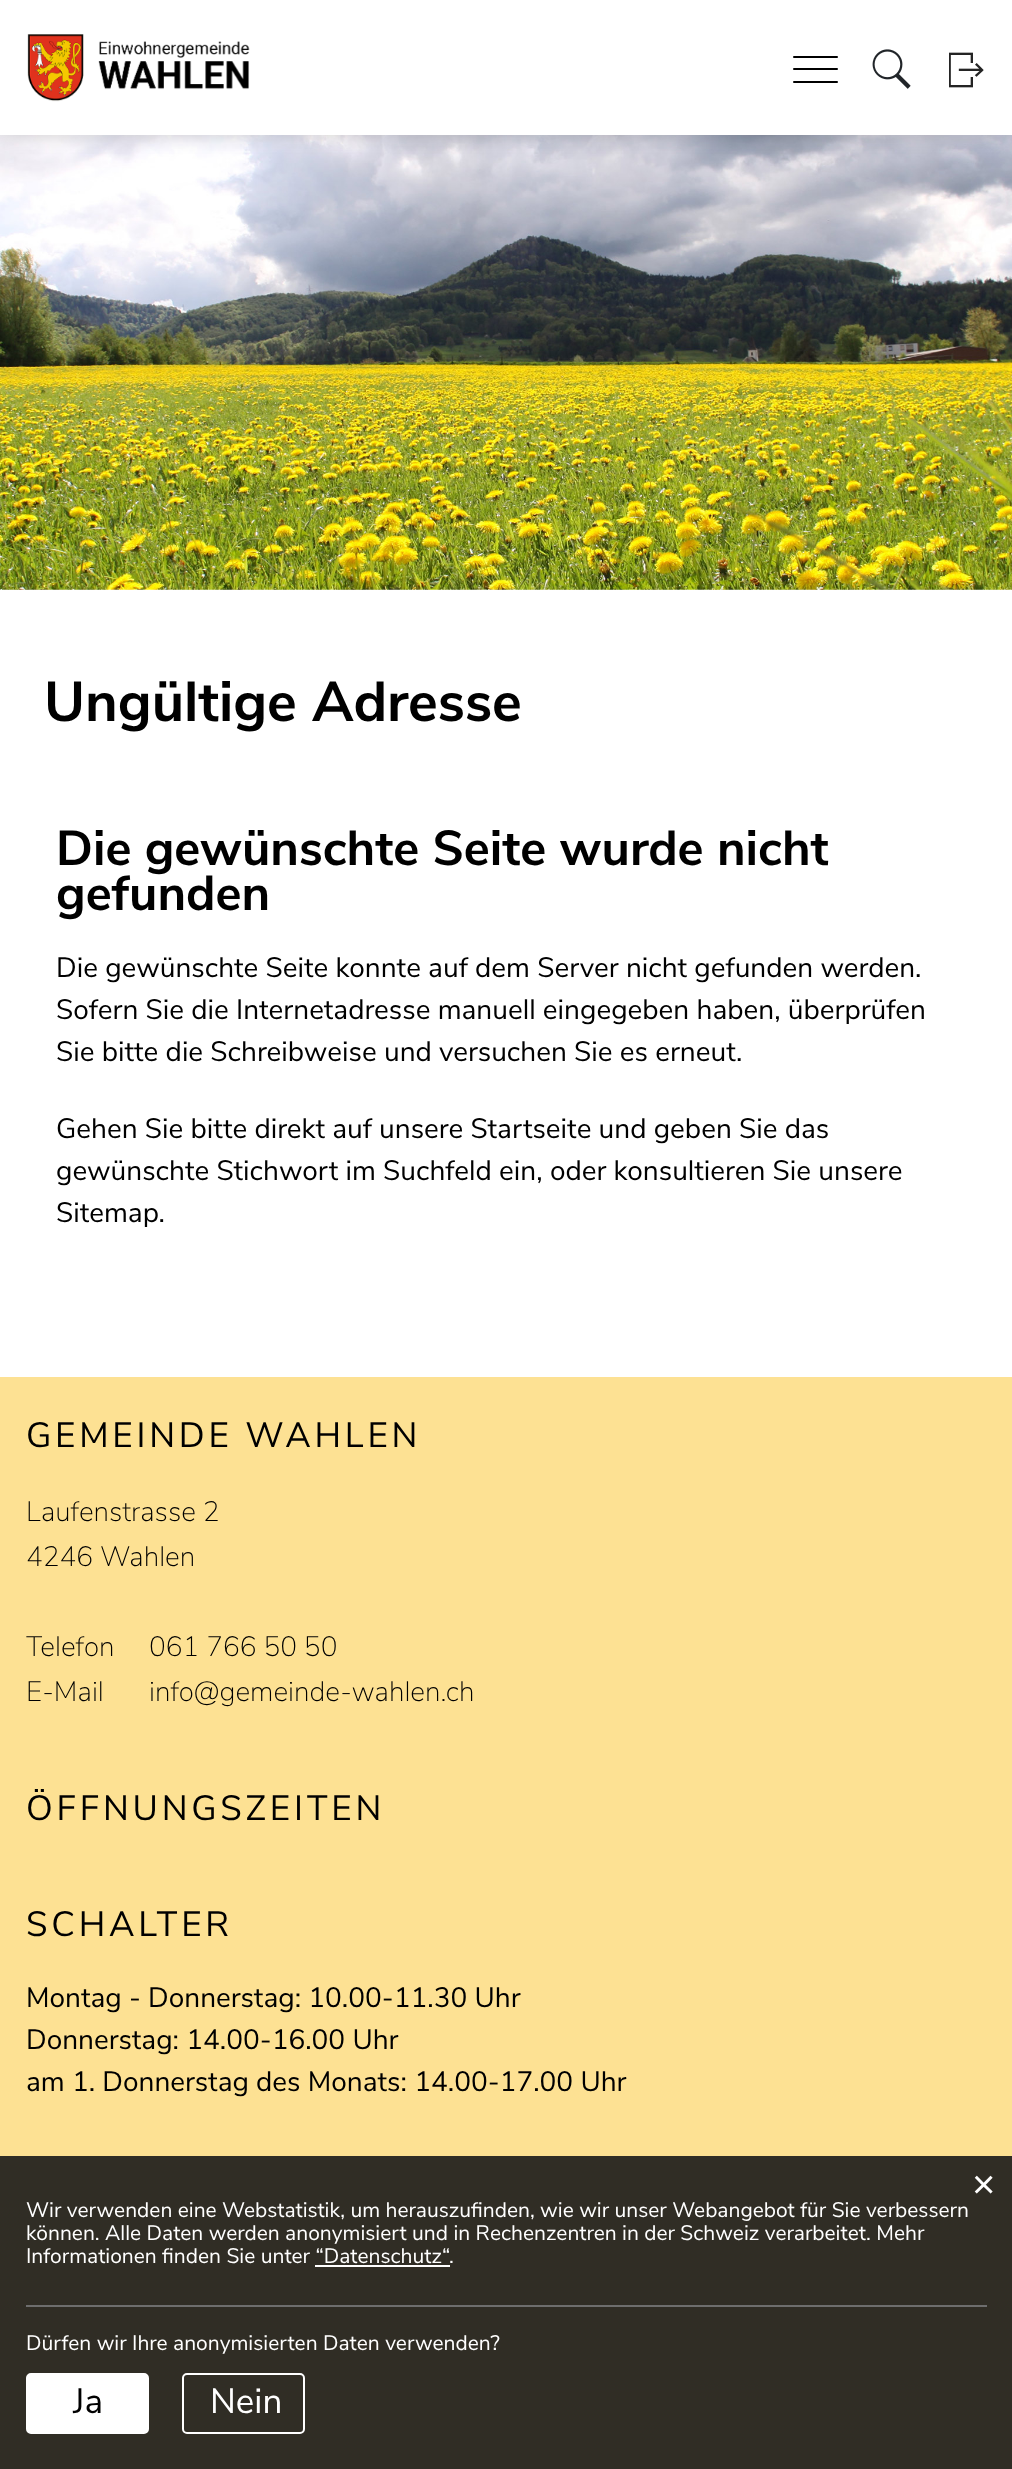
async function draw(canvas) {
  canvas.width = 1012;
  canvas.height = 2469;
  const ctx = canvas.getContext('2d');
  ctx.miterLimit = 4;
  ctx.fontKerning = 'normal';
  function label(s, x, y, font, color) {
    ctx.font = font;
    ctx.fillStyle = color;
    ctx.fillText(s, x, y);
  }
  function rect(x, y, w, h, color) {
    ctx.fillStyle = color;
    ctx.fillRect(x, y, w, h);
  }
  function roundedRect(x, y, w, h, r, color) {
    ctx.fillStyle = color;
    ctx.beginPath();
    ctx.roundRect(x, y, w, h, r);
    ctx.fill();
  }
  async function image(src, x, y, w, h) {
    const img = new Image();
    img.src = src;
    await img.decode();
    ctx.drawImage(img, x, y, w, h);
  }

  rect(0, 0, 1012, 2469, '#fff');
  await image('assets/img4.png', 0, 135, 1012, 455);
  ctx.fillStyle = '#00000033';
  ctx.filter = 'blur(9px)';
  ctx.beginPath();
  ctx.rect(0, 0, 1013, 135);
  ctx.fill();
  ctx.filter = 'none';
  rect(0, 0, 1012, 135, '#fff');
  await image('assets/img1.png', 27, 34, 223, 68);
  await image('assets/img2.png', 872, 49, 39, 40);
  await image('assets/img3.png', 949, 52, 35, 36);
  roundedRect(793, 56, 45, 2, 1, '#000');
  roundedRect(793, 68, 45, 2, 1, '#000');
  roundedRect(793, 81, 45, 2, 1, '#000');
  label('Ungültige Adresse', 44, 721, 'bold 56px Nunito Sans', '#000');
  label('Die gewünschte Seite wurde nicht', 56, 865, 'bold 49px Nunito Sans', '#000');
  label('gefunden', 56, 910, 'bold 49px Nunito Sans', '#000');
  label('Die gewünschte Seite konnte auf dem Server nicht gefunden werden.', 56, 977, '28px Nunito Sans', '#000');
  label('Sofern Sie die Internetadresse manuell eingegeben haben, überprüfen', 56, 1019, '28px Nunito Sans', '#000');
  label('Sie bitte die Schreibweise und versuchen Sie es erneut.', 56, 1061, '28px Nunito Sans', '#000');
  label('Gehen Sie bitte direkt auf unsere Startseite und geben Sie das', 56, 1138, '28px Nunito Sans', '#000');
  label('gewünschte Stichwort im Suchfeld ein, oder konsultieren Sie unsere', 56, 1180, '28px Nunito Sans', '#000');
  label('Sitemap.', 56, 1222, '28px Nunito Sans', '#000');
  rect(0, 1377, 1012, 1092, '#fde193');
  ctx.letterSpacing = '3.75px';
  label('GEMEINDE WAHLEN', 26, 1447, '35px Nunito Sans', '#000');
  ctx.letterSpacing = '0px';
  label('Laufenstrasse 2', 26, 1521, '200 28px Nunito Sans', '#000');
  label('4246 Wahlen', 26, 1566, '200 28px Nunito Sans', '#000');
  label('Telefon', 26, 1656, '200 28px Nunito Sans', '#000');
  label('061 766 50 50', 149, 1656, '200 28px Nunito Sans', '#000');
  label('E-Mail', 26, 1701, '200 28px Nunito Sans', '#000');
  label('info@gemeinde-wahlen.ch', 149, 1701, '200 28px Nunito Sans', '#000');
  ctx.letterSpacing = '3.75px';
  label('ÖFFNUNGSZEITEN', 26, 1820, '35px Nunito Sans', '#000');
  label('SCHALTER', 26, 1936, '35px Nunito Sans', '#000');
  ctx.letterSpacing = '0px';
  label('Montag - Donnerstag: 10.00-11.30 Uhr', 26, 2007, '28px Nunito Sans', '#000');
  label('Donnerstag: 14.00-16.00 Uhr', 26, 2049, '28px Nunito Sans', '#000');
  label('am 1. Donnerstag des Monats: 14.00-17.00 Uhr', 26, 2091, '28px Nunito Sans', '#000');
  rect(0, 2156, 1012, 313, '#191919e6');
  label('×', 972, 2198, '40px Liberation Sans', '#fff');
  rect(26, 2305, 961, 2, '#6d6d6d');
  label('Wir verwenden eine Webstatistik, um herauszufinden, wie wir unser Webangebot für Sie verbessern', 26, 2217, '21px Nunito Sans', '#fff');
  label('können. Alle Daten werden anonymisiert und in Rechenzentren in der Schweiz verarbeitet. Mehr', 26, 2240, '21px Nunito Sans', '#fff');
  label('Informationen finden Sie unter “Datenschutz“', 26, 2263, '21px Nunito Sans', '#fff');
  label('.', 449, 2263, '21px Nunito Sans', '#fff');
  rect(315, 2265, 135, 2, '#fff');
  label('Dürfen wir Ihre anonymisierten Daten verwenden?', 26, 2350, '21px Nunito Sans', '#fff');
  ctx.beginPath();
  ctx.roundRect(27, 2374, 121, 59, 4);
  ctx.fill();
  ctx.strokeStyle = '#fff';
  ctx.lineWidth = 2;
  ctx.stroke();
  label('Ja', 73, 2413, '35px Nunito Sans', '#000');
  ctx.beginPath();
  ctx.roundRect(183, 2374, 121, 59, 4);
  ctx.stroke();
  label('Nein', 210, 2413, '35px Nunito Sans', '#fff');
}

draw(document.querySelector('canvas'));
